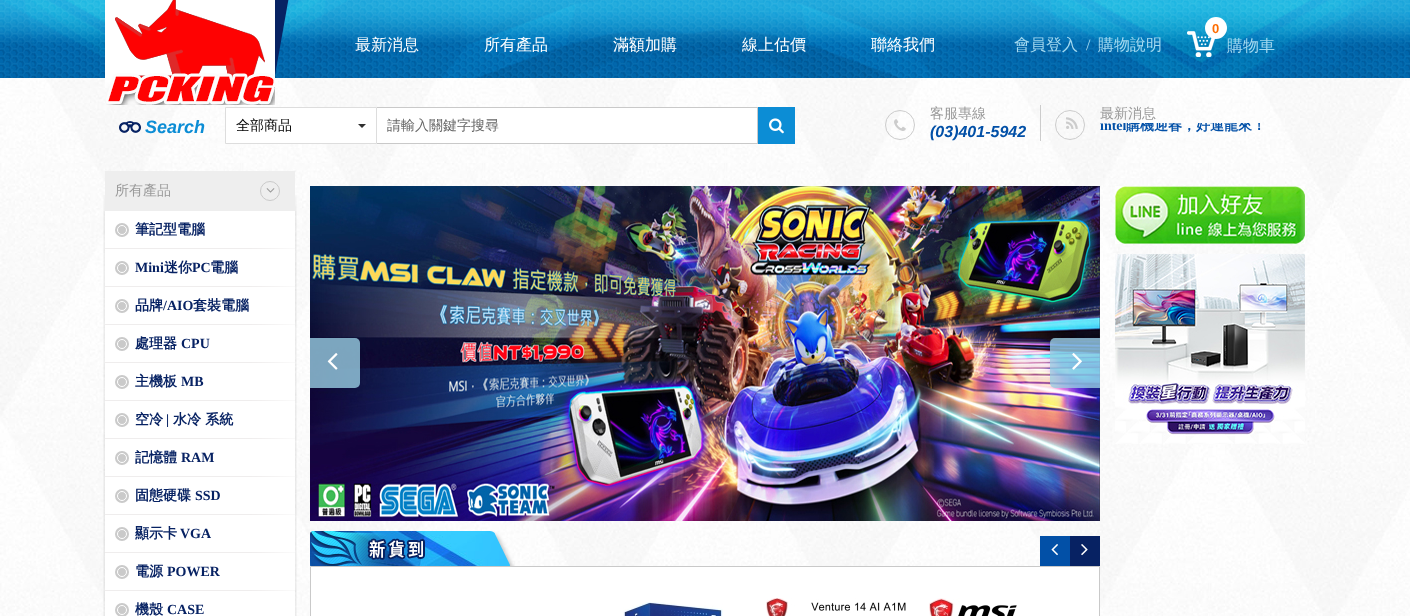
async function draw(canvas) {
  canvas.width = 1410;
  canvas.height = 616;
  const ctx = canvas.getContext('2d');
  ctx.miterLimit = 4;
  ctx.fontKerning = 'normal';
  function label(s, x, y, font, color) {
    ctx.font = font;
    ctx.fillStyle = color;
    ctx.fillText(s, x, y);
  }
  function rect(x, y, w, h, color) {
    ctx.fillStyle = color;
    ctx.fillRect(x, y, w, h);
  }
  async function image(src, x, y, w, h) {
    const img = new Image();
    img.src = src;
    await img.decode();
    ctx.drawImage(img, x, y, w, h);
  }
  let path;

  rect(0, 0, 1410, 616, '#fff');
  await image('assets/img1.png', 0, 78, 1410, 538);
  await image('assets/img2.png', 0, 0, 1410, 78);
  await image('assets/img3.png', 105, 0, 184, 88);
  await image('assets/img4.png', 106, 0, 169, 105);
  label('最新消息', 355, 50, '500 16px WenQuanYi Zen Hei', '#fff');
  label('所有產品', 484, 50, '500 16px WenQuanYi Zen Hei', '#fff');
  label('滿額加購', 613, 50, '500 16px WenQuanYi Zen Hei', '#fff');
  label('線上估價', 742, 50, '500 16px WenQuanYi Zen Hei', '#fff');
  label('聯絡我們', 871, 50, '500 16px WenQuanYi Zen Hei', '#fff');
  label('會員登入', 1014, 50, '500 16px WenQuanYi Zen Hei', '#a4daf0');
  label('/', 1086, 50, '16px Liberation Serif', '#a4daf0');
  label('購物說明', 1098, 50, '500 16px WenQuanYi Zen Hei', '#a4daf0');
  await image('assets/img5.png', 1187, 31, 28, 26);
  ctx.fillStyle = '#fff';
  ctx.beginPath();
  ctx.arc(1216, 28, 11, 0, 2 * Math.PI);
  ctx.fill();
  label('0', 1212, 33, 'bold 13px Liberation Sans', '#fe6d02');
  label('購物車', 1227, 51, '500 16px WenQuanYi Zen Hei', '#a4daf0');
  await image('assets/img6.png', 119, 121, 22, 12);
  label('Search', 145, 133, 'italic bold 18px Liberation Sans', '#0c8dd5');
  ctx.fillStyle = '#fff';
  ctx.beginPath();
  ctx.rect(225.5, 107.5, 151, 36);
  ctx.fill();
  ctx.strokeStyle = '#ddd';
  ctx.stroke();
  label('全部商品', 236, 130, '500 14px WenQuanYi Zen Hei', '#000');
  ctx.fillStyle = '#2f2f2f';
  path = new Path2D('M358 124H366L362 128Z');
  ctx.fill(path);
  rect(377, 108, 380, 35, '#fff');
  rect(377, 107, 381, 1, '#c9c9c9');
  rect(757, 107, 1, 37, '#c9c9c9');
  rect(377, 143, 381, 1, '#c9c9c9');
  label('請輸入關鍵字搜尋', 387, 130, '500 14px WenQuanYi Zen Hei', '#666');
  rect(758, 107, 37, 37, '#0c8dd5');
  await image('assets/img7.png', 769, 118, 15, 16);
  rect(1040, 105, 1, 36, '#ccc');
  ctx.beginPath();
  ctx.arc(900, 125, 14.5, 0, 2 * Math.PI);
  ctx.strokeStyle = '#ccc';
  ctx.stroke();
  await image('assets/img8.png', 894, 119, 12, 12);
  label('客服專線', 930, 118, '500 14px WenQuanYi Zen Hei', '#999');
  label('(03)401-5942', 930, 137, 'italic bold 16px Liberation Sans', '#0250a7');
  ctx.beginPath();
  ctx.arc(1070, 125, 14.5, 0, 2 * Math.PI);
  ctx.stroke();
  await image('assets/img9.png', 1066, 117, 12, 12);
  label('最新消息', 1100, 118, '500 14px WenQuanYi Zen Hei', '#999');
  ctx.save();
  ctx.beginPath();
  ctx.rect(1100, 123, 205, 19);
  ctx.clip();
  label('intel', 1100, 130, 'bold 14px Liberation Serif', '#0250a7');
  label('購機迎春，好運龍來！', 1126, 130, 'bold 14px WenQuanYi Zen Hei', '#0250a7');
  ctx.restore();
  await image('assets/img11.png', 103, 195, 194, 16);
  rect(105, 171, 190, 40, '#eee');
  label('所有產品', 115, 195, '500 14px WenQuanYi Zen Hei', '#999');
  ctx.beginPath();
  ctx.arc(270, 191, 9.5, 0, 2 * Math.PI);
  ctx.strokeStyle = '#cacaca';
  ctx.stroke();
  await image('assets/img10.png', 266, 188, 9, 5);
  await image('assets/img12.png', 103, 211, 194, 405);
  await image('assets/img13.png', 105, 248, 190, 1);
  ctx.fillStyle = '#cacaca';
  ctx.beginPath();
  ctx.arc(122, 230, 7, 0, 2 * Math.PI);
  ctx.fill();
  label('筆記型電腦', 135, 234, 'bold 14px WenQuanYi Zen Hei', '#072263');
  ctx.beginPath();
  ctx.arc(122, 230, 4.5, 0, 2 * Math.PI);
  ctx.strokeStyle = '#fff';
  ctx.stroke();
  await image('assets/img13.png', 105, 286, 190, 1);
  ctx.fillStyle = '#cacaca';
  ctx.beginPath();
  ctx.arc(122, 268, 7, 0, 2 * Math.PI);
  ctx.fill();
  label('Mini', 135, 272, 'bold 14px Liberation Serif', '#072263');
  label('迷你', 164, 272, 'bold 14px WenQuanYi Zen Hei', '#072263');
  label('PC', 192, 272, 'bold 14px Liberation Serif', '#072263');
  label('電腦', 210, 272, 'bold 14px WenQuanYi Zen Hei', '#072263');
  ctx.beginPath();
  ctx.arc(122, 268, 4.5, 0, 2 * Math.PI);
  ctx.stroke();
  await image('assets/img13.png', 105, 324, 190, 1);
  ctx.fillStyle = '#cacaca';
  ctx.beginPath();
  ctx.arc(122, 306, 7, 0, 2 * Math.PI);
  ctx.fill();
  label('品牌', 135, 310, 'bold 14px WenQuanYi Zen Hei', '#072263');
  label('/AIO', 163, 310, 'bold 14px Liberation Serif', '#072263');
  label('套裝電腦', 193, 310, 'bold 14px WenQuanYi Zen Hei', '#072263');
  ctx.beginPath();
  ctx.arc(122, 306, 4.5, 0, 2 * Math.PI);
  ctx.stroke();
  await image('assets/img13.png', 105, 362, 190, 1);
  ctx.fillStyle = '#cacaca';
  ctx.beginPath();
  ctx.arc(122, 344, 7, 0, 2 * Math.PI);
  ctx.fill();
  label('處理器', 135, 348, 'bold 14px WenQuanYi Zen Hei', '#072263');
  label('CPU', 181, 348, 'bold 14px Liberation Serif', '#072263');
  ctx.beginPath();
  ctx.arc(122, 344, 4.5, 0, 2 * Math.PI);
  ctx.stroke();
  await image('assets/img13.png', 105, 400, 190, 1);
  ctx.fillStyle = '#cacaca';
  ctx.beginPath();
  ctx.arc(122, 382, 7, 0, 2 * Math.PI);
  ctx.fill();
  label('主機板', 135, 386, 'bold 14px WenQuanYi Zen Hei', '#072263');
  label('MB', 181, 386, 'bold 14px Liberation Serif', '#072263');
  ctx.beginPath();
  ctx.arc(122, 382, 4.5, 0, 2 * Math.PI);
  ctx.stroke();
  await image('assets/img13.png', 105, 438, 190, 1);
  ctx.fillStyle = '#cacaca';
  ctx.beginPath();
  ctx.arc(122, 420, 7, 0, 2 * Math.PI);
  ctx.fill();
  label('空冷', 135, 424, 'bold 14px WenQuanYi Zen Hei', '#072263');
  label('|', 166, 424, 'bold 14px Liberation Serif', '#072263');
  label('水冷 系統', 173, 424, 'bold 14px WenQuanYi Zen Hei', '#072263');
  ctx.beginPath();
  ctx.arc(122, 420, 4.5, 0, 2 * Math.PI);
  ctx.stroke();
  await image('assets/img13.png', 105, 476, 190, 1);
  ctx.fillStyle = '#cacaca';
  ctx.beginPath();
  ctx.arc(122, 458, 7, 0, 2 * Math.PI);
  ctx.fill();
  label('記憶體', 135, 462, 'bold 14px WenQuanYi Zen Hei', '#072263');
  label('RAM', 181, 462, 'bold 14px Liberation Serif', '#072263');
  ctx.beginPath();
  ctx.arc(122, 458, 4.5, 0, 2 * Math.PI);
  ctx.stroke();
  await image('assets/img13.png', 105, 514, 190, 1);
  ctx.fillStyle = '#cacaca';
  ctx.beginPath();
  ctx.arc(122, 496, 7, 0, 2 * Math.PI);
  ctx.fill();
  label('固態硬碟', 135, 500, 'bold 14px WenQuanYi Zen Hei', '#072263');
  label('SSD', 195, 500, 'bold 14px Liberation Serif', '#072263');
  ctx.beginPath();
  ctx.arc(122, 496, 4.5, 0, 2 * Math.PI);
  ctx.stroke();
  await image('assets/img13.png', 105, 552, 190, 1);
  ctx.fillStyle = '#cacaca';
  ctx.beginPath();
  ctx.arc(122, 534, 7, 0, 2 * Math.PI);
  ctx.fill();
  label('顯示卡', 135, 538, 'bold 14px WenQuanYi Zen Hei', '#072263');
  label('VGA', 180, 538, 'bold 14px Liberation Serif', '#072263');
  ctx.beginPath();
  ctx.arc(122, 534, 4.5, 0, 2 * Math.PI);
  ctx.stroke();
  await image('assets/img13.png', 105, 590, 190, 1);
  ctx.fillStyle = '#cacaca';
  ctx.beginPath();
  ctx.arc(122, 572, 7, 0, 2 * Math.PI);
  ctx.fill();
  label('電源', 135, 576, 'bold 14px WenQuanYi Zen Hei', '#072263');
  label('POWER', 167, 576, 'bold 14px Liberation Serif', '#072263');
  ctx.beginPath();
  ctx.arc(122, 572, 4.5, 0, 2 * Math.PI);
  ctx.stroke();
  ctx.fillStyle = '#cacaca';
  ctx.beginPath();
  ctx.arc(122, 610, 7, 0, 2 * Math.PI);
  ctx.fill();
  label('機殼', 135, 614, 'bold 14px WenQuanYi Zen Hei', '#072263');
  label('CASE', 167, 614, 'bold 14px Liberation Serif', '#072263');
  ctx.beginPath();
  ctx.arc(122, 610, 4.5, 0, 2 * Math.PI);
  ctx.stroke();
  await image('assets/img14.png', 310, 186, 790, 335);
  ctx.fillStyle = '#99cde2cc';
  ctx.beginPath();
  ctx.roundRect(310, 338, 50, 50, [0, 5, 5, 0]);
  ctx.fill();
  await image('assets/img15.png', 327, 353, 11, 17);
  ctx.beginPath();
  ctx.roundRect(1050, 338, 50, 50, [5, 0, 0, 5]);
  ctx.fill();
  await image('assets/img16.png', 1072, 353, 10, 17);
  await image('assets/img17.png', 310, 531, 205, 35);
  ctx.fillStyle = '#fff';
  ctx.beginPath();
  ctx.rect(310.5, 566.5, 789, 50);
  ctx.fill();
  ctx.strokeStyle = '#c9c9c9';
  ctx.stroke();
  rect(1040, 536, 30, 30, '#0250a7');
  await image('assets/img18.png', 1051, 544, 7, 12);
  rect(1070, 536, 30, 30, '#072263');
  await image('assets/img19.png', 1081, 544, 7, 12);
  await image('assets/img20.png', 623, 602, 100, 14);
  await image('assets/img21.png', 766, 598, 140, 18);
  await image('assets/img22.png', 929, 598, 88, 18);
  await image('assets/img23.png', 1115, 186, 190, 58);
  await image('assets/img24.png', 1115, 254, 190, 190);
}

draw(document.querySelector('canvas'));
